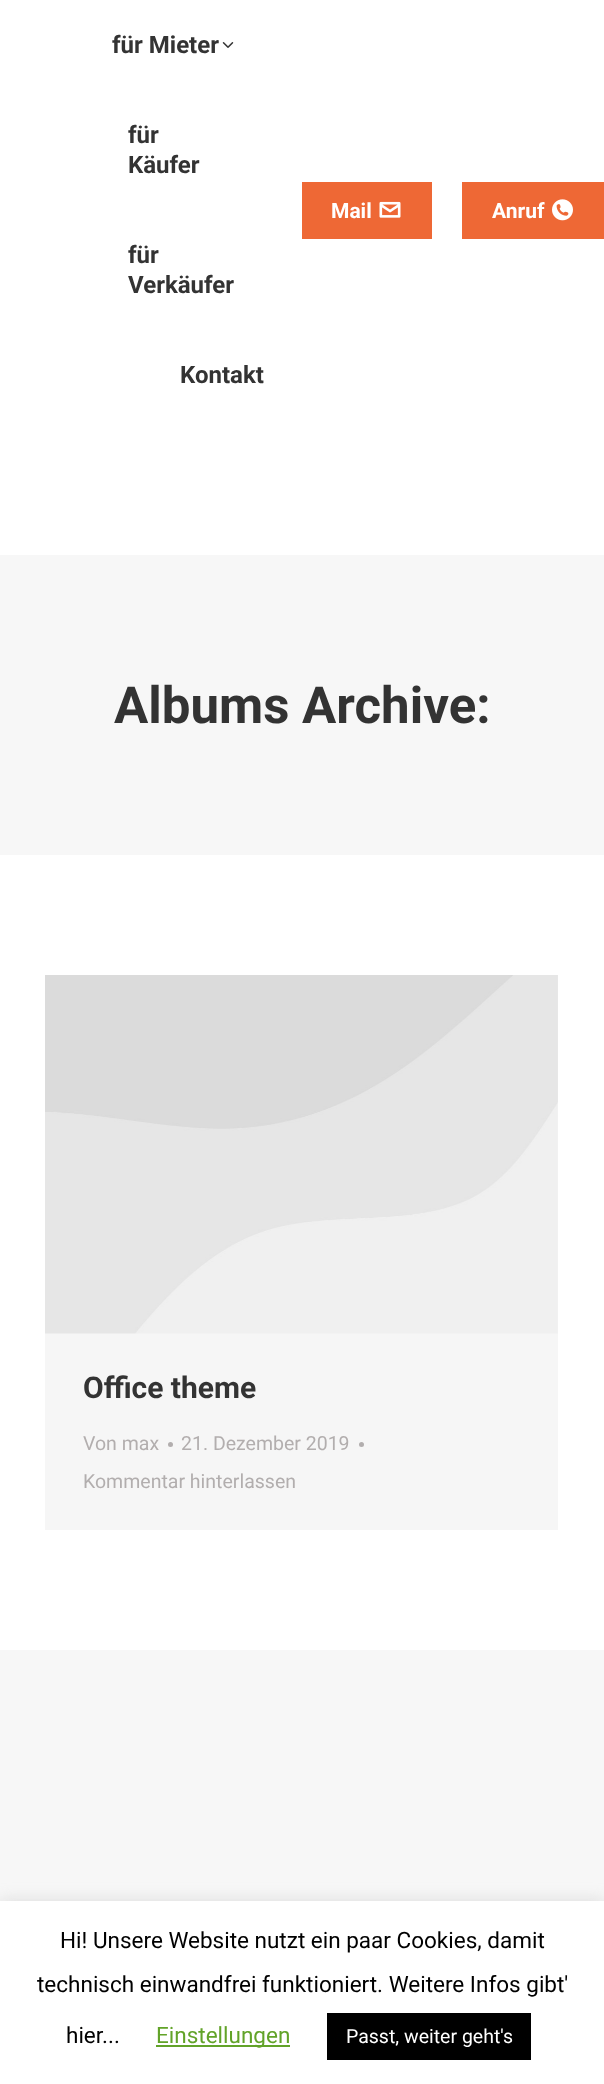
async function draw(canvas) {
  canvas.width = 604;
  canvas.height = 2084;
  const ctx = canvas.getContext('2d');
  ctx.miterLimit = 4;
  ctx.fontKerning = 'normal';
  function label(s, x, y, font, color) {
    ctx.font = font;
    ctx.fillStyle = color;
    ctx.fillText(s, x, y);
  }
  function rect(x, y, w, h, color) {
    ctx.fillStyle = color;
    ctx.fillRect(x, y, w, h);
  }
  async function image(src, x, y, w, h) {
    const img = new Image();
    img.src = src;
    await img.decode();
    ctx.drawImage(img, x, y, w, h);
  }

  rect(0, 0, 604, 2084, '#f7f7f7');
  rect(0, 0, 604, 1650, '#fff');
  label('für Mieter', 112, 53, 'bold 24px Roboto', '#333');
  await image('assets/img1.png', 222, 42, 12, 6);
  label('für', 128, 143, 'bold 24px Roboto', '#333');
  label('Käufer', 128, 173, 'bold 24px Roboto', '#333');
  label('für', 128, 263, 'bold 24px Roboto', '#333');
  label('Verkäufer', 128, 293, 'bold 24px Roboto', '#333');
  label('Kontakt', 180, 383, 'bold 24px Roboto', '#333');
  rect(302, 182, 130, 57, '#ee6835');
  label('Mail', 331, 218, 'bold 21px Roboto', '#fff');
  await image('assets/img2.png', 379, 201, 22, 17);
  rect(462, 182, 142, 57, '#ee6835');
  label('Anruf', 492, 218, 'bold 21px Roboto', '#fff');
  await image('assets/img3.png', 552, 199, 21, 22);
  rect(0, 555, 604, 300, '#f7f7f7');
  label('Albums Archive:', 114, 723, 'bold 51px Roboto', '#333');
  rect(45, 975, 513, 555, '#f6f6f6');
  await image('assets/img4.png', 45, 975, 513, 359);
  label('Office theme', 83, 1398, 'bold 30px Roboto', '#333');
  label('Von max', 83, 1450, '19.5px Roboto', '#b2aeae');
  ctx.beginPath();
  ctx.arc(170.5, 1444.5, 2.5, 0, 2 * Math.PI);
  ctx.fill();
  label('21. Dezember 2019', 181, 1450, '19.5px Roboto', '#b2aeae');
  ctx.beginPath();
  ctx.arc(361.5, 1444.5, 2.5, 0, 2 * Math.PI);
  ctx.fill();
  label('Kommentar hinterlassen', 83, 1488, '19.5px Roboto', '#b2aeae');
  ctx.fillStyle = '#acabab4d';
  ctx.filter = 'blur(7.5px)';
  ctx.beginPath();
  ctx.rect(0, 1899, 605, 185);
  ctx.fill();
  ctx.filter = 'none';
  rect(0, 1901, 604, 183, '#fff');
  label('Hi! Unsere Website nutzt ein paar Cookies, damit', 60, 1948, '22.5px Roboto', '#000');
  label('technisch einwandfrei funktioniert. Weitere Infos gibt\'', 37, 1992, '22.5px Roboto', '#000');
  label('hier...', 66, 2043, '22.5px Roboto', '#000');
  rect(156, 2045, 134, 2, '#62a329');
  label('Einstellungen', 156, 2043, '22.5px Roboto', '#62a329');
  rect(327, 2013, 204, 47, '#000');
  label('Passt, weiter geht\'s', 346, 2043, '19.5px Roboto', '#fff');
}

draw(document.querySelector('canvas'));
